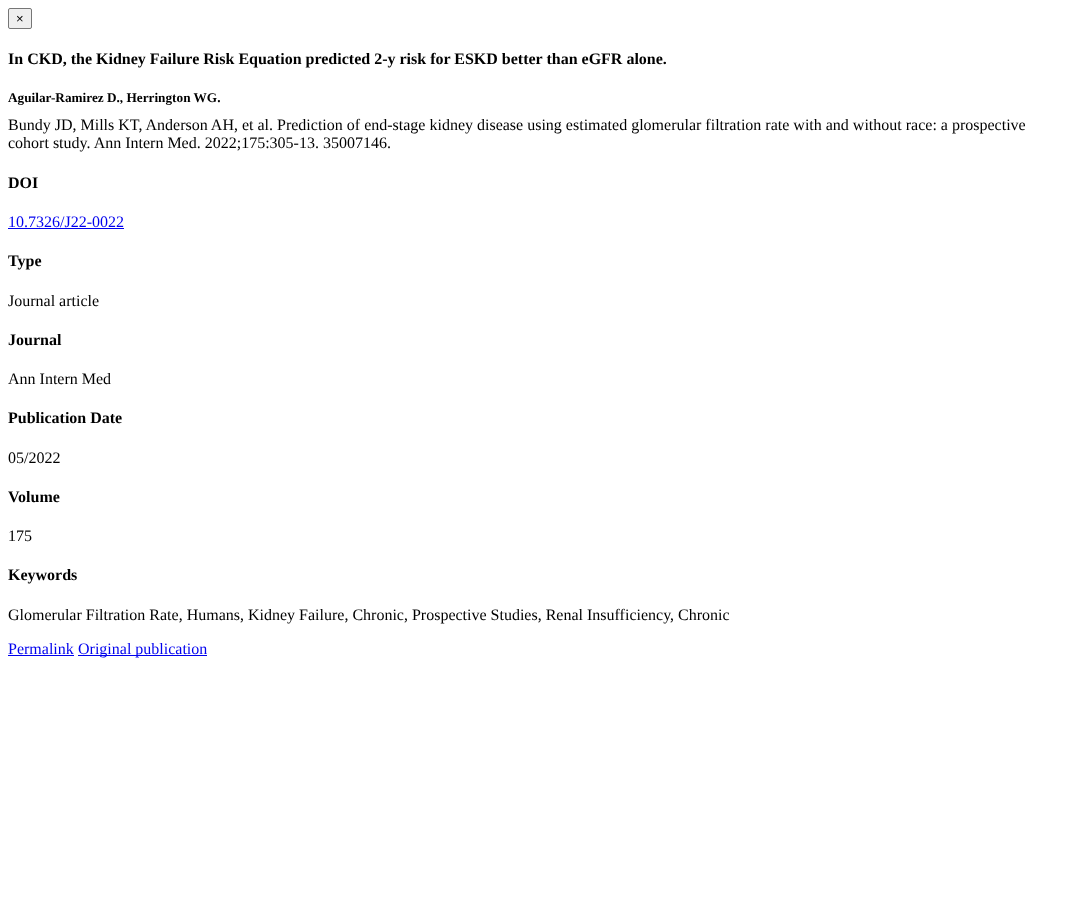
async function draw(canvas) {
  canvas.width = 1074;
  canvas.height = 913;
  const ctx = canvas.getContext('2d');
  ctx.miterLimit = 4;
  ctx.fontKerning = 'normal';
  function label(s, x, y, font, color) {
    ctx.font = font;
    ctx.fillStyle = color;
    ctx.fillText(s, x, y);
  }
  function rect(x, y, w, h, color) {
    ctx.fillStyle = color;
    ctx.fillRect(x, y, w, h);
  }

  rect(0, 0, 1074, 913, '#fff');
  ctx.fillStyle = '#efefef';
  ctx.beginPath();
  ctx.roundRect(8.5, 8.5, 23, 20, 1.5);
  ctx.fill();
  ctx.strokeStyle = '#767676';
  ctx.stroke();
  label('×', 16, 23, '13px Liberation Sans', '#000');
  label('In CKD, the Kidney Failure Risk Equation predicted 2-y risk for ESKD better than eGFR alone.', 8, 64, 'bold 16px Liberation Serif', '#000');
  label('Aguilar-Ramirez D., Herrington WG.', 8, 102, 'bold 13.25px Liberation Serif', '#000');
  label('Bundy JD, Mills KT, Anderson AH, et al. Prediction of end-stage kidney disease using estimated glomerular filtration rate with and without race: a prospective', 8, 130, '16px Liberation Serif', '#000');
  label('cohort study. Ann Intern Med. 2022;175:305-13. 35007146.', 8, 148, '16px Liberation Serif', '#000');
  label('DOI', 8, 188, 'bold 16px Liberation Serif', '#000');
  label('10.7326/J22-0022', 8, 227, '16px Liberation Serif', '#00e');
  rect(8, 228, 116, 1, '#00e');
  label('Type', 8, 266, 'bold 16px Liberation Serif', '#000');
  label('Journal article', 8, 306, '16px Liberation Serif', '#000');
  label('Journal', 8, 345, 'bold 16px Liberation Serif', '#000');
  label('Ann Intern Med', 8, 384, '16px Liberation Serif', '#000');
  label('Publication Date', 8, 423, 'bold 16px Liberation Serif', '#000');
  label('05/2022', 8, 463, '16px Liberation Serif', '#000');
  label('Volume', 8, 502, 'bold 16px Liberation Serif', '#000');
  label('175', 8, 541, '16px Liberation Serif', '#000');
  label('Keywords', 8, 580, 'bold 16px Liberation Serif', '#000');
  label('Glomerular Filtration Rate, Humans, Kidney Failure, Chronic, Prospective Studies, Renal Insufficiency, Chronic', 8, 620, '16px Liberation Serif', '#000');
  label('Permalink', 8, 654, '16px Liberation Serif', '#00e');
  rect(8, 655, 66, 1, '#00e');
  rect(78, 655, 129, 1, '#00e');
  label('Original publication', 78, 654, '16px Liberation Serif', '#00e');
}

draw(document.querySelector('canvas'));
